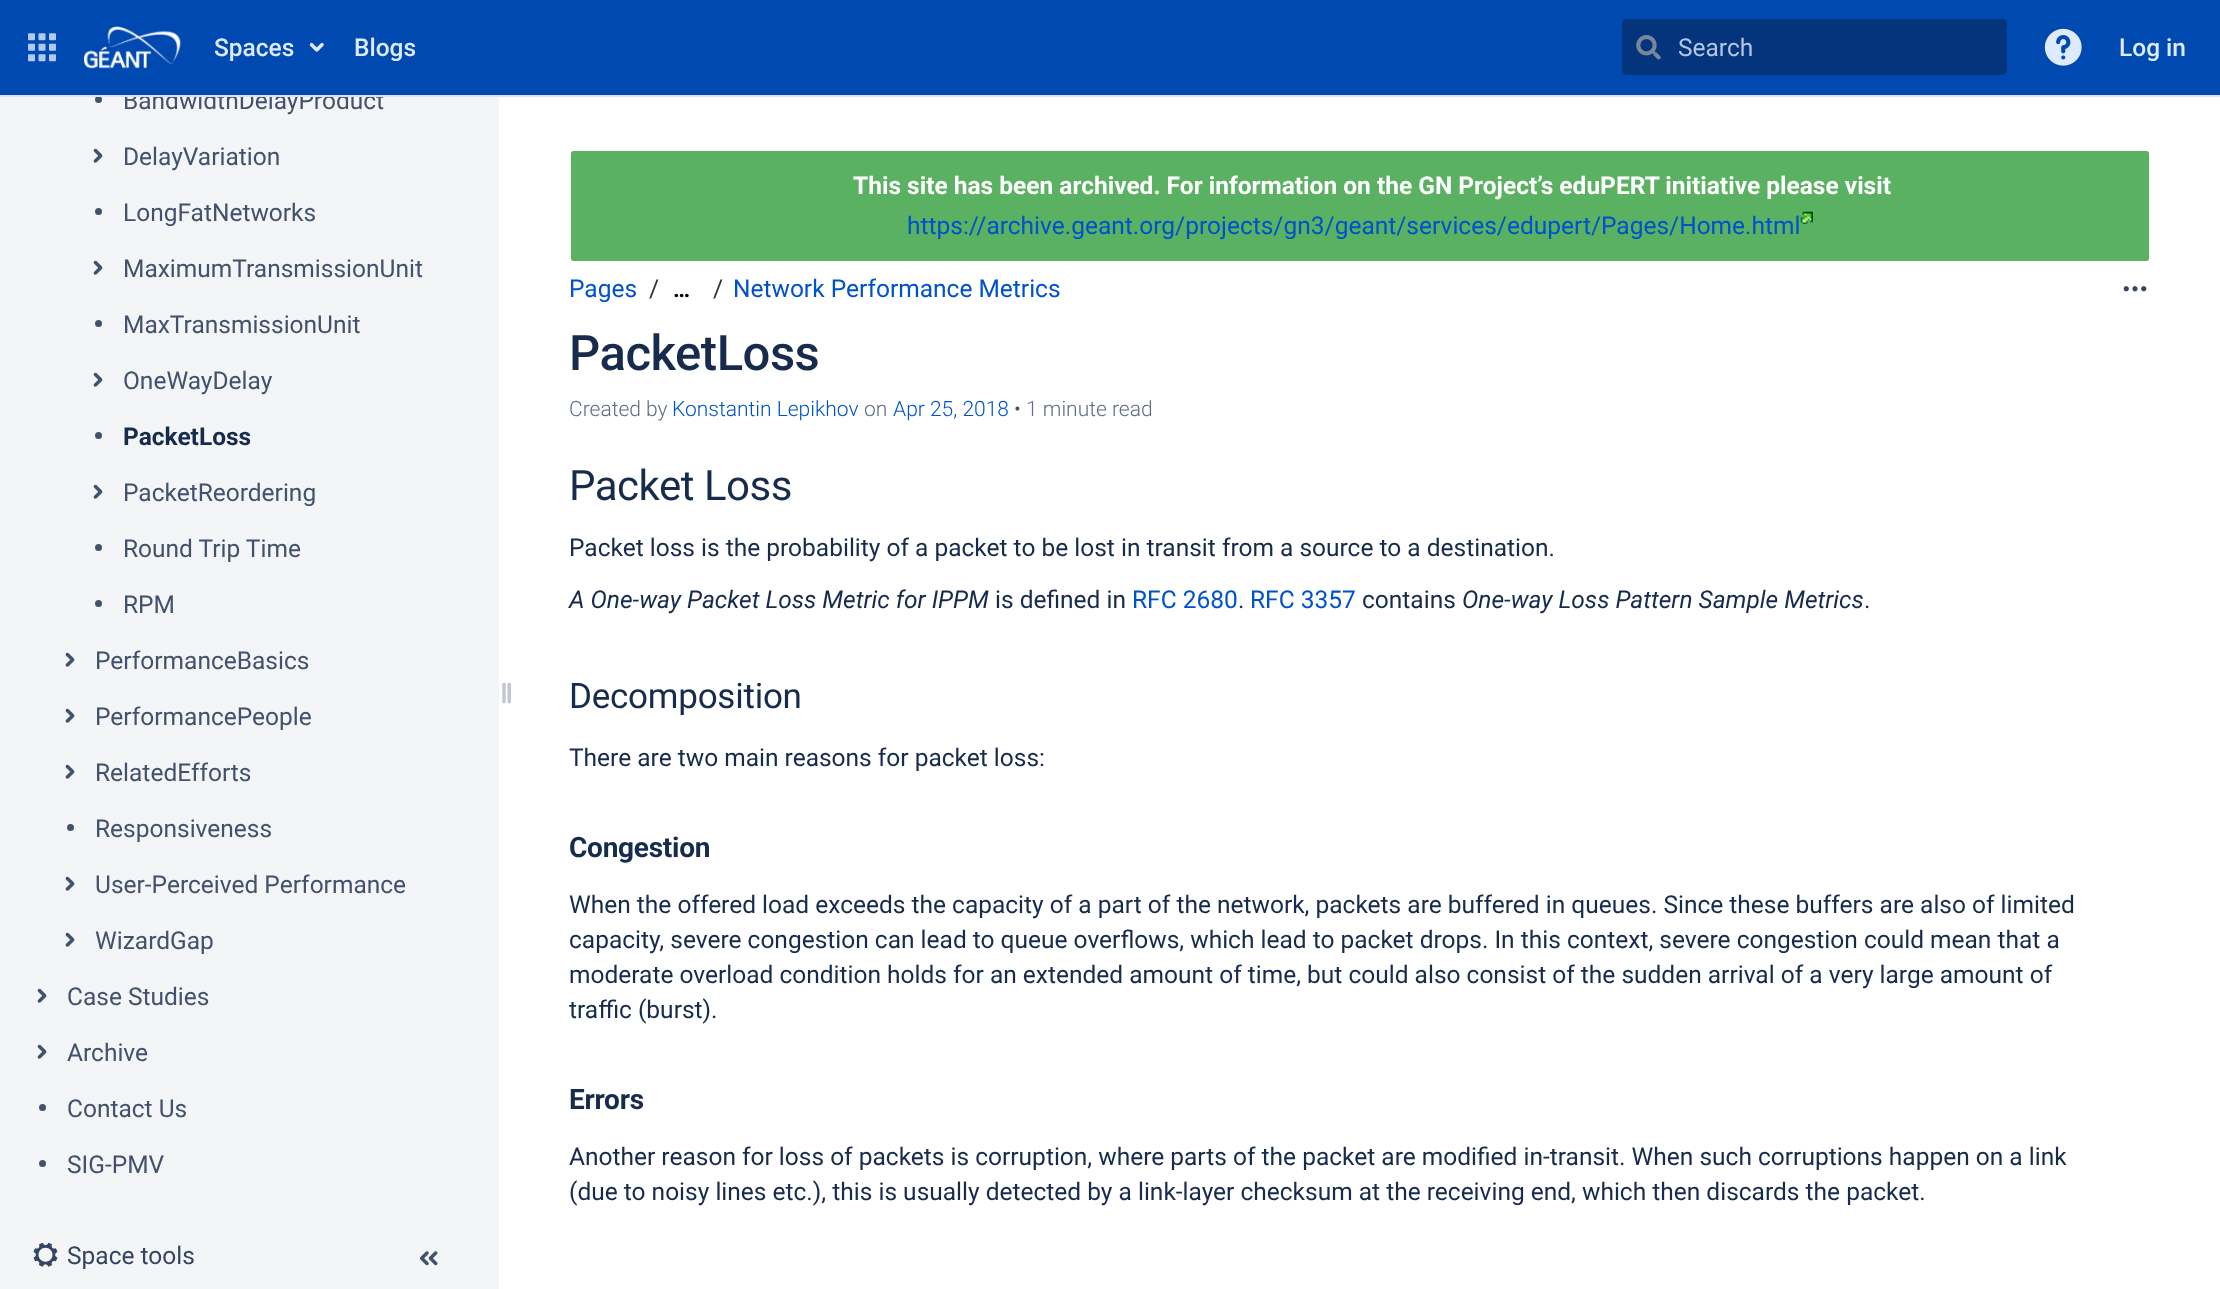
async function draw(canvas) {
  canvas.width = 2220;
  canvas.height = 1289;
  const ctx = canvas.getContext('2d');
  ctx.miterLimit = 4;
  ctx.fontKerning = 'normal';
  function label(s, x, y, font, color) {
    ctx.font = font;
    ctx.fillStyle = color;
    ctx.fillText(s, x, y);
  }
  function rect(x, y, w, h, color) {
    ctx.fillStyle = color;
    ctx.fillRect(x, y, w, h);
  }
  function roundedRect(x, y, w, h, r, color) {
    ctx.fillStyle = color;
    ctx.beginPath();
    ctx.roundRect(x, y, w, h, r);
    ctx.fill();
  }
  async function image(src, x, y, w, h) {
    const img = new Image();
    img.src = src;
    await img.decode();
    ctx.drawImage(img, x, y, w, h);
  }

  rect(0, 0, 2220, 1289, '#f4f5f7');
  rect(0, 0, 2220, 95, '#0049b0');
  ctx.fillStyle = '#42526e';
  ctx.beginPath();
  ctx.arc(98.5, 99.5, 3.5, 0, 2 * Math.PI);
  ctx.fill();
  ctx.save();
  ctx.beginPath();
  ctx.rect(119, 96, 341, 25);
  ctx.clip();
  label('BandwidthDelayProduct', 123, 109, '24.5px Roboto', '#42526e');
  ctx.restore();
  rect(0, 95, 2220, 2, '#dfe1e6');
  await image('assets/img1.png', 28, 33, 28, 29);
  await image('assets/img2.png', 84, 26, 97, 43);
  label('Spaces', 214, 56, '500 24.5px Roboto', '#deebff');
  await image('assets/img3.png', 309, 42, 15, 10);
  label('Blogs', 354, 56, '500 24.5px Roboto', '#deebff');
  roundedRect(1622, 19, 385, 56, 5, '#04347b');
  await image('assets/img4.png', 1636, 35, 25, 25);
  label('Search', 1678, 56, '24.5px Roboto', '#b2c6e5');
  await image('assets/img5.png', 2044, 28, 38, 38);
  label('Log in', 2119, 56, '500 24.5px Roboto', '#deebff');
  await image('assets/img6.png', 93, 148, 10, 15);
  label('DelayVariation', 123, 165, '24.5px Roboto', '#42526e');
  ctx.beginPath();
  ctx.arc(98.5, 211.5, 3.5, 0, 2 * Math.PI);
  ctx.fill();
  label('LongFatNetworks', 123, 221, '24.5px Roboto', '#42526e');
  await image('assets/img6.png', 93, 260, 10, 15);
  label('MaximumTransmissionUnit', 123, 277, '24.5px Roboto', '#42526e');
  ctx.beginPath();
  ctx.arc(98.5, 323.5, 3.5, 0, 2 * Math.PI);
  ctx.fill();
  label('MaxTransmissionUnit', 123, 333, '24.5px Roboto', '#42526e');
  await image('assets/img6.png', 93, 372, 10, 15);
  label('OneWayDelay', 123, 389, '24.5px Roboto', '#42526e');
  ctx.beginPath();
  ctx.arc(98.5, 435.5, 3.5, 0, 2 * Math.PI);
  ctx.fill();
  label('PacketLoss', 123, 445, 'bold 24.5px Roboto', '#172b4d');
  await image('assets/img6.png', 93, 484, 10, 15);
  label('PacketReordering', 123, 501, '24.5px Roboto', '#42526e');
  ctx.beginPath();
  ctx.arc(98.5, 547.5, 3.5, 0, 2 * Math.PI);
  ctx.fill();
  label('Round Trip Time', 123, 557, '24.5px Roboto', '#42526e');
  ctx.beginPath();
  ctx.arc(98.5, 603.5, 3.5, 0, 2 * Math.PI);
  ctx.fill();
  label('RPM', 123, 613, '24.5px Roboto', '#42526e');
  await image('assets/img6.png', 65, 652, 10, 15);
  label('PerformanceBasics', 95, 669, '24.5px Roboto', '#42526e');
  await image('assets/img6.png', 65, 708, 10, 15);
  label('PerformancePeople', 95, 725, '24.5px Roboto', '#42526e');
  await image('assets/img6.png', 65, 764, 10, 15);
  label('RelatedEfforts', 95, 781, '24.5px Roboto', '#42526e');
  ctx.beginPath();
  ctx.arc(70.5, 827.5, 3.5, 0, 2 * Math.PI);
  ctx.fill();
  label('Responsiveness', 95, 837, '24.5px Roboto', '#42526e');
  await image('assets/img6.png', 65, 876, 10, 15);
  label('User-Perceived Performance', 95, 893, '24.5px Roboto', '#42526e');
  await image('assets/img6.png', 65, 932, 10, 15);
  label('WizardGap', 95, 949, '24.5px Roboto', '#42526e');
  await image('assets/img6.png', 37, 988, 10, 15);
  label('Case Studies', 67, 1005, '24.5px Roboto', '#42526e');
  await image('assets/img6.png', 37, 1044, 10, 15);
  label('Archive', 67, 1061, '24.5px Roboto', '#42526e');
  ctx.beginPath();
  ctx.arc(42.5, 1107.5, 3.5, 0, 2 * Math.PI);
  ctx.fill();
  label('Contact Us', 67, 1117, '24.5px Roboto', '#42526e');
  ctx.beginPath();
  ctx.arc(42.5, 1163.5, 3.5, 0, 2 * Math.PI);
  ctx.fill();
  label('SIG-PMV', 67, 1173, '24.5px Roboto', '#42526e');
  rect(499, 97, 1721, 1192, '#fff');
  await image('assets/img7.png', 502, 683, 9, 21);
  await image('assets/img8.png', 33, 1242, 25, 25);
  label('Space tools', 67, 1264, '24.5px Roboto', '#344563');
  await image('assets/img9.png', 420, 1251, 18, 15);
  ctx.fillStyle = '#59b161';
  ctx.beginPath();
  ctx.roundRect(570, 150, 1580, 112, 4);
  ctx.fill();
  ctx.strokeStyle = '#fff';
  ctx.lineWidth = 2;
  ctx.stroke();
  roundedRect(571, 151, 1578, 110, 4, '#59b161');
  label('This site has been archived. For information on the GN Project’s eduPERT initiative please visit', 853, 194, 'bold 24.5px Roboto', '#fff');
  label('https://archive.geant.org/projects/gn3/geant/services/edupert/Pages/Home.html', 907, 234, '24.5px Roboto', '#0052cc');
  await image('assets/img10.png', 1800, 211, 13, 13);
  label('Pages', 569, 297, '24.5px Roboto', '#0052cc');
  label('/', 649, 297, '24.5px Roboto', '#333');
  label('…', 673, 297, 'bold 23px Roboto', '#000');
  label('/', 713, 297, '24.5px Roboto', '#333');
  label('Network Performance Metrics', 733, 297, '24.5px Roboto', '#0052cc');
  ctx.letterSpacing = '-0.5px';
  label('PacketLoss', 569, 370, '500 49px Roboto', '#172b4d');
  await image('assets/img11.png', 2123, 286, 24, 6);
  ctx.letterSpacing = '0px';
  label('Created by', 569, 416, '300 21px Roboto', '#5e6c84');
  label('Konstantin Lepikhov', 672, 416, '300 21px Roboto', '#0052cc');
  label('on', 864, 416, '300 21px Roboto', '#5e6c84');
  label('Apr 25, 2018', 893, 416, '300 21px Roboto', '#0052cc');
  label('•', 1014, 416, '300 21px Roboto', '#42526e');
  label('1 minute read', 1026, 416, '300 21px Roboto', '#5e6c84');
  ctx.letterSpacing = '-0.5px';
  label('Packet Loss', 569, 500, '42px Roboto', '#172b4d');
  ctx.letterSpacing = '0px';
  label('Packet loss is the probability of a packet to be lost in transit from a source to a destination.', 569, 556, '24.5px Roboto', '#172b4d');
  label('A One-way Packet Loss Metric for IPPM', 569, 608, 'italic 24.5px Roboto', '#172b4d');
  label('is defined in', 995, 608, '24.5px Roboto', '#172b4d');
  label('RFC 2680', 1132, 608, '24.5px Roboto', '#0052cc');
  label('.', 1238, 608, '24.5px Roboto', '#172b4d');
  label('RFC 3357', 1250, 608, '24.5px Roboto', '#0052cc');
  label('contains', 1362, 608, '24.5px Roboto', '#172b4d');
  label('One-way Loss Pattern Sample Metrics', 1462, 608, 'italic 24.5px Roboto', '#172b4d');
  label('.', 1864, 608, '24.5px Roboto', '#172b4d');
  ctx.letterSpacing = '-0.25px';
  label('Decomposition', 569, 708, '35px Roboto', '#172b4d');
  ctx.letterSpacing = '0px';
  label('There are two main reasons for packet loss:', 569, 766, '24.5px Roboto', '#172b4d');
  ctx.letterSpacing = '-0.25px';
  label('Congestion', 569, 857, 'bold 28px Roboto', '#172b4d');
  ctx.letterSpacing = '0px';
  label('When the offered load exceeds the capacity of a part of the network, packets are buffered in queues. Since these buffers are also of limited', 569, 913, '24.5px Roboto', '#172b4d');
  label('capacity, severe congestion can lead to queue overflows, which lead to packet drops. In this context, severe congestion could mean that a', 569, 948, '24.5px Roboto', '#172b4d');
  label('moderate overload condition holds for an extended amount of time, but could also consist of the sudden arrival of a very large amount of', 569, 983, '24.5px Roboto', '#172b4d');
  label('traffic (burst).', 569, 1018, '24.5px Roboto', '#172b4d');
  ctx.letterSpacing = '-0.25px';
  label('Errors', 569, 1109, 'bold 28px Roboto', '#172b4d');
  ctx.letterSpacing = '0px';
  label('Another reason for loss of packets is corruption, where parts of the packet are modified in-transit. When such corruptions happen on a link', 569, 1165, '24.5px Roboto', '#172b4d');
  label('(due to noisy lines etc.), this is usually detected by a link-layer checksum at the receiving end, which then discards the packet.', 569, 1200, '24.5px Roboto', '#172b4d');
}

draw(document.querySelector('canvas'));
